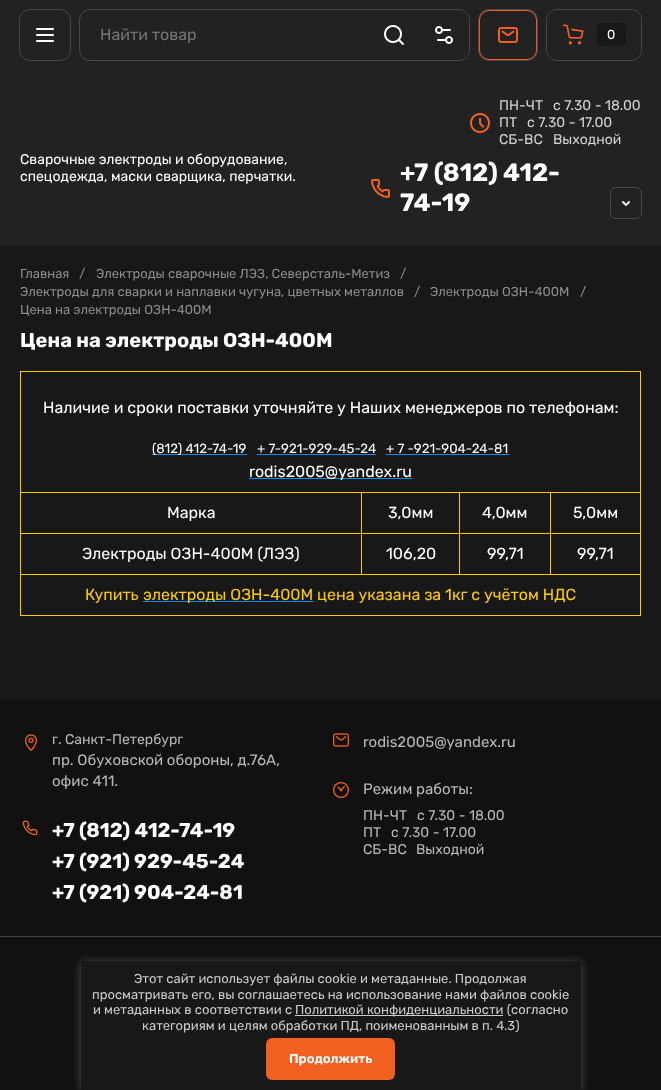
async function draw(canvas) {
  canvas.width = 661;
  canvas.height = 1090;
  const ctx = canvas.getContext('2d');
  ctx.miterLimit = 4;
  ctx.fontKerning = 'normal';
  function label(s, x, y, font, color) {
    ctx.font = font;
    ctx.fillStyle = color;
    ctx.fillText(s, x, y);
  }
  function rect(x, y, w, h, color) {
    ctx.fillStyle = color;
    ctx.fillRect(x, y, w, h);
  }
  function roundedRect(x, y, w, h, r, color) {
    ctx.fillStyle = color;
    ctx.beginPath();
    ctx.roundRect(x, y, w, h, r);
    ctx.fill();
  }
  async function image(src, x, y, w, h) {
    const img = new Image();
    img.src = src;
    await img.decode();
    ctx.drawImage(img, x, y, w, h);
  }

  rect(0, 0, 661, 1090, '#181818');
  rect(0, 0, 661, 246, '#222');
  ctx.beginPath();
  ctx.roundRect(19.5, 9.5, 51, 51, 10.5);
  ctx.strokeStyle = '#474747';
  ctx.stroke();
  await image('assets/img1.png', 36, 28, 18, 14);
  ctx.beginPath();
  ctx.roundRect(79.5, 9.5, 390, 51, 10.5);
  ctx.stroke();
  label('Найти товар', 100, 40, '16px Rubik', '#757575');
  await image('assets/img2.png', 384, 25, 20, 20);
  ctx.fillStyle = '#222';
  ctx.beginPath();
  ctx.roundRect(419, 10, 50, 50, [0, 10, 10, 0]);
  ctx.fill();
  await image('assets/img3.png', 435, 26, 18, 18);
  ctx.beginPath();
  ctx.roundRect(478.5, 9.5, 59, 51, 10.5);
  ctx.stroke();
  ctx.beginPath();
  ctx.roundRect(479.5, 10.5, 57, 49, 9.5);
  ctx.strokeStyle = '#f16020';
  ctx.stroke();
  await image('assets/img4.png', 498, 27, 20, 16);
  ctx.beginPath();
  ctx.roundRect(546.5, 9.5, 95, 51, 10.5);
  ctx.strokeStyle = '#474747';
  ctx.stroke();
  roundedRect(547, 10, 94, 50, 10, '#222');
  await image('assets/img5.png', 562, 24, 22, 21);
  roundedRect(597, 23, 29, 23, 5, '#181818');
  label('0', 607, 39, '13px Rubik', '#fff');
  label('Сварочные электроды и оборудование,', 20, 164, '14px Rubik', '#fff');
  label('спецодежда, маски сварщика, перчатки.', 20, 181, '14px Rubik', '#fff');
  await image('assets/img6.png', 470, 113, 20, 20);
  label('ПН-ЧТ', 499, 110, '14px Rubik', '#d3d3d3');
  label('с 7.30 - 18.00', 553, 110, '14px Rubik', '#d3d3d3');
  label('ПТ', 499, 127, '14px Rubik', '#d3d3d3');
  label('с 7.30 - 17.00', 527, 127, '14px Rubik', '#d3d3d3');
  label('СБ-ВС', 499, 144, '14px Rubik', '#d3d3d3');
  label('Выходной', 553, 144, '14px Rubik', '#d3d3d3');
  await image('assets/img7.png', 371, 179, 19, 19);
  label('+7 (812) 412-', 400, 181, 'bold 25px Rubik', '#fff');
  label('74-19', 400, 211, 'bold 25px Rubik', '#fff');
  ctx.beginPath();
  ctx.roundRect(610.5, 187.5, 31, 31, 5.5);
  ctx.stroke();
  await image('assets/img8.png', 622, 201, 8, 5);
  label('Главная', 20, 278, '13px Rubik', '#8c8c8c');
  label('/', 79, 278, '13px Rubik', '#8c8c8c');
  label('Электроды сварочные ЛЭЗ, Северсталь-Метиз', 96, 278, '13px Rubik', '#8c8c8c');
  label('/', 400, 278, '13px Rubik', '#8c8c8c');
  label('Электроды для сварки и наплавки чугуна, цветных металлов', 20, 296, '13px Rubik', '#8c8c8c');
  label('/', 414, 296, '13px Rubik', '#8c8c8c');
  label('Электроды ОЗН-400М', 430, 296, '13px Rubik', '#8c8c8c');
  label('/', 580, 296, '13px Rubik', '#8c8c8c');
  label('Цена на электроды ОЗН-400М', 20, 314, '13px Rubik', '#8c8c8c');
  label('Цена на электроды ОЗН-400М', 20, 347, 'bold 20px Rubik', '#fff');
  rect(20, 371, 621, 1, '#fc0');
  rect(550, 492, 91, 1, '#fc0');
  rect(550, 533, 91, 1, '#fc0');
  rect(20, 574, 621, 1, '#fc0');
  rect(640, 574, 1, 42, '#fc0');
  rect(640, 533, 1, 42, '#fc0');
  rect(640, 492, 1, 42, '#fc0');
  rect(640, 371, 1, 122, '#fc0');
  rect(550, 533, 1, 42, '#fc0');
  rect(459, 533, 92, 1, '#fc0');
  rect(550, 492, 1, 42, '#fc0');
  rect(459, 492, 92, 1, '#fc0');
  rect(459, 533, 1, 42, '#fc0');
  rect(361, 533, 99, 1, '#fc0');
  rect(459, 492, 1, 42, '#fc0');
  rect(361, 492, 99, 1, '#fc0');
  rect(361, 533, 1, 42, '#fc0');
  rect(20, 533, 342, 1, '#fc0');
  rect(361, 492, 1, 42, '#fc0');
  rect(20, 492, 342, 1, '#fc0');
  rect(20, 615, 621, 1, '#fc0');
  rect(20, 574, 1, 42, '#fc0');
  rect(20, 533, 1, 42, '#fc0');
  rect(20, 492, 1, 42, '#fc0');
  rect(20, 371, 1, 122, '#fc0');
  label('Наличие и сроки поставки уточняйте у Наших менеджеров по телефонам:', 43, 413, '16px Rubik', '#fff');
  rect(152, 454, 95, 1, '#008efc');
  label('(812) 412-74-19', 152, 453, '13.25px Rubik', '#fff');
  label('+ 7-921-929-45-24', 257, 453, '13.25px Rubik', '#fff');
  rect(257, 454, 119, 1, '#008efc');
  label('+ 7 -921-904-24-81', 386, 453, '13.25px Rubik', '#fff');
  rect(386, 454, 123, 1, '#008efc');
  rect(249, 478, 163, 1, '#008efc');
  label('rodis2005@yandex.ru', 249, 477, '16px Rubik', '#fff');
  label('Марка', 167, 518, '16px Rubik', '#fff');
  label('3,0мм', 388, 518, '16px Rubik', '#fff');
  label('4,0мм', 482, 518, '16px Rubik', '#fff');
  label('5,0мм', 573, 518, '16px Rubik', '#fff');
  label('Электроды ОЗН-400М (ЛЭЗ)', 82, 559, '16px Rubik', '#fff');
  label('106,20', 386, 559, '16px Rubik', '#fff');
  label('99,71', 487, 559, '16px Rubik', '#fff');
  label('99,71', 577, 559, '16px Rubik', '#fff');
  label('Купить', 85, 600, '16px Rubik', '#fc0');
  rect(143, 601, 170, 1, '#008efc');
  label('электроды ОЗН-400М цена указана за 1кг с учётом НДС', 143, 600, '16px Rubik', '#fc0');
  rect(0, 700, 661, 390, '#111');
  rect(0, 936, 661, 1, '#414141');
  await image('assets/img9.png', 25, 734, 12, 17);
  label('г. Санкт-Петербург', 52, 744, '14px Rubik', '#b8b8b8');
  label('пр. Обуховской обороны, д.76А,', 52, 765, '15px Rubik', '#b8b8b8');
  label('офис 411.', 52, 786, '15px Rubik', '#b8b8b8');
  await image('assets/img10.png', 22, 820, 16, 16);
  label('+7 (812) 412-74-19', 52, 837, 'bold 20px Rubik', '#fff');
  label('+7 (921) 929-45-24', 52, 868, 'bold 20px Rubik', '#fff');
  label('+7 (921) 904-24-81', 52, 899, 'bold 20px Rubik', '#fff');
  await image('assets/img11.png', 333, 733, 16, 14);
  label('rodis2005@yandex.ru', 363, 747, '15px Rubik', '#b8b8b8');
  await image('assets/img12.png', 333, 782, 16, 16);
  label('Режим работы:', 363, 794, '15px Rubik', '#b8b8b8');
  label('ПН-ЧТ', 363, 820, '14px Rubik', '#b8b8b8');
  label('с 7.30 - 18.00', 417, 820, '14px Rubik', '#b8b8b8');
  label('ПТ', 363, 837, '14px Rubik', '#b8b8b8');
  label('с 7.30 - 17.00', 391, 837, '14px Rubik', '#b8b8b8');
  label('СБ-ВС', 363, 854, '14px Rubik', '#b8b8b8');
  label('Выходной', 416, 854, '14px Rubik', '#b8b8b8');
  ctx.fillStyle = '#ffffff40';
  ctx.filter = 'blur(5px)';
  ctx.beginPath();
  ctx.rect(81, 962, 500, 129);
  ctx.fill();
  ctx.filter = 'none';
  rect(81, 961, 500, 129, '#181818');
  label('Этот сайт использует файлы cookie и метаданные. Продолжая', 134, 983, '13px Rubik', '#ccc');
  label('просматривать его, вы соглашаетесь на использование нами файлов cookie', 92, 999, '13px Rubik', '#ccc');
  label('и метаданных в соответствии с', 93, 1014, '13px Rubik', '#ccc');
  rect(295, 1015, 208, 1, '#ccc');
  label('Политикой конфиденциальности (согласно', 295, 1014, '13px Rubik', '#ccc');
  label('категориям и целям обработки ПД, поименованным в п. 4.3)', 142, 1030, '13px Rubik', '#ccc');
  roundedRect(266, 1038, 129, 42, 6, '#f16020');
  label('Продолжить', 289, 1063, '600 13px Rubik', '#fff');
}

draw(document.querySelector('canvas'));
